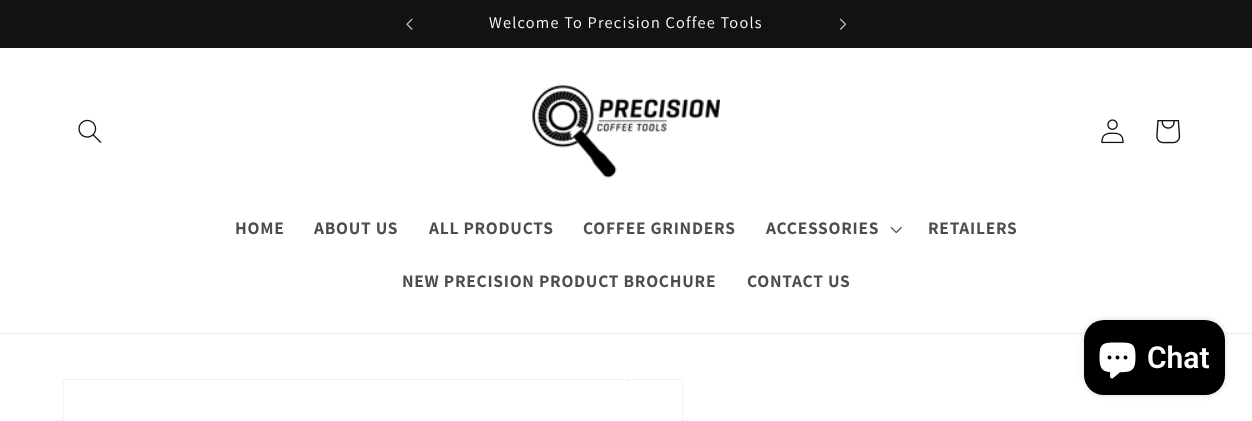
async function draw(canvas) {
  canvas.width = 1252;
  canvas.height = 421;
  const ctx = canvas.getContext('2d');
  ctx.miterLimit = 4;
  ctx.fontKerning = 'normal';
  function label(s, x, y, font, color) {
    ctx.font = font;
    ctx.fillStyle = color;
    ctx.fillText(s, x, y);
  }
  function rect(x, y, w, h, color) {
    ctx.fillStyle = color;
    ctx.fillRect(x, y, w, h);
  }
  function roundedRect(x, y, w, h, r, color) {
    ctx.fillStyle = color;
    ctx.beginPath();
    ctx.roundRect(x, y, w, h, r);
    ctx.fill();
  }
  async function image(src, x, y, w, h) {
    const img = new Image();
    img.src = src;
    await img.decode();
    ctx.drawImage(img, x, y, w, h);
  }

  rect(0, 0, 1252, 421, '#fff');
  rect(0, 0, 1252, 48, '#121212');
  await image('assets/img1.png', 406, 18, 7, 12);
  ctx.letterSpacing = '1.25px';
  label('Welcome To Precision Coffee Tools', 489, 28, '16.25px Assistant', '#fff');
  await image('assets/img2.png', 839, 18, 7, 12);
  rect(0, 333, 1252, 1, '#ececec');
  await image('assets/img3.png', 78, 119, 24, 24);
  await image('assets/img4.png', 532, 84, 188, 94);
  await image('assets/img5.png', 1101, 119, 23, 25);
  await image('assets/img6.png', 1156, 120, 25, 24);
  ctx.letterSpacing = '0.75px';
  label('HOME', 235, 234, 'bold 17.5px Assistant', '#4d4d4d');
  label('ABOUT US', 314, 234, 'bold 17.5px Assistant', '#4d4d4d');
  label('ALL PRODUCTS', 429, 234, 'bold 17.5px Assistant', '#4d4d4d');
  label('COFFEE GRINDERS', 583, 234, 'bold 17.5px Assistant', '#4d4d4d');
  label('ACCESSORIES', 766, 234, 'bold 17.5px Assistant', '#4d4d4d');
  await image('assets/img7.png', 890, 226, 12, 8);
  label('RETAILERS', 928, 234, 'bold 17.5px Assistant', '#4d4d4d');
  label('NEW PRECISION PRODUCT BROCHURE', 402, 287, 'bold 17.5px Assistant', '#4d4d4d');
  label('CONTACT US', 747, 287, 'bold 17.5px Assistant', '#4d4d4d');
  ctx.fillStyle = '#00000026';
  ctx.filter = 'blur(3px)';
  ctx.beginPath();
  ctx.roundRect(1084, 320, 141, 75, 20);
  ctx.fill();
  ctx.filter = 'none';
  roundedRect(1084, 320, 141, 75, 20, '#000');
  await image('assets/img8.png', 1099, 342, 37, 37);
  ctx.letterSpacing = '0px';
  label('Chat', 1147, 368, '600 30px Roboto', '#fff');
  ctx.strokeStyle = '#f3f3f3';
  ctx.strokeRect(63.5, 379.5, 619, 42);
  await image('assets/img9.png', 628, 380, 2, 2);
}

draw(document.querySelector('canvas'));
